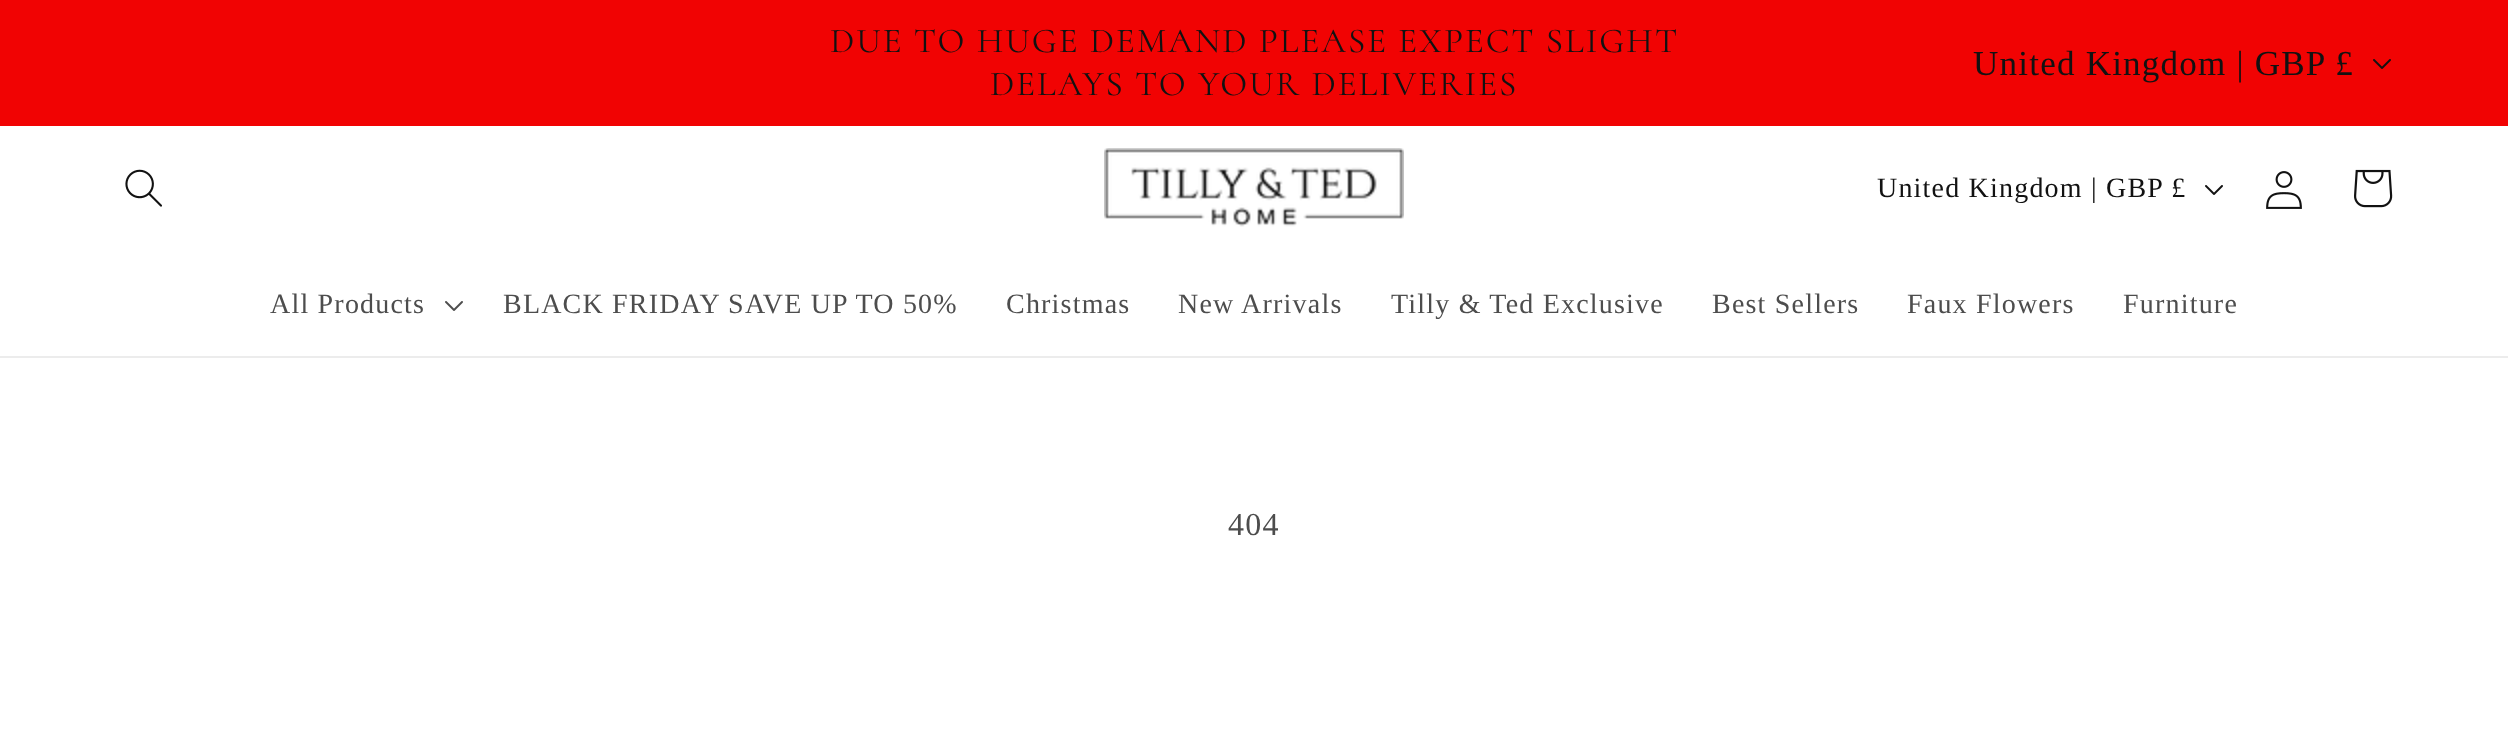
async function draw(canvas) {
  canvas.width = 2508;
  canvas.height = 732;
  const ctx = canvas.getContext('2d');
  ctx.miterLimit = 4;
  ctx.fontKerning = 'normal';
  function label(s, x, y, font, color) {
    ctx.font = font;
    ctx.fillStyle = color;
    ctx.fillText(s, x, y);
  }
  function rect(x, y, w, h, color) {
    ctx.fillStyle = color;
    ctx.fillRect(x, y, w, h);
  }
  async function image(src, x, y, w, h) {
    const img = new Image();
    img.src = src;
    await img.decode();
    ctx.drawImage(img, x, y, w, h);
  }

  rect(0, 0, 2508, 732, '#fff');
  rect(0, 0, 2508, 126, '#f10303');
  ctx.letterSpacing = '2px';
  label('DUE TO HUGE DEMAND PLEASE EXPECT SLIGHT', 830, 52, '35.1px Cormorant', '#121212');
  label('DELAYS TO YOUR DELIVERIES', 990, 95, '35.1px Cormorant', '#121212');
  ctx.letterSpacing = '1.2px';
  label('United Kingdom | GBP £', 1973, 75, '35.1px Liberation Serif', '#121212');
  await image('assets/img1.png', 2373, 59, 18, 10);
  rect(0, 356, 2508, 2, '#ececec');
  await image('assets/img2.png', 125, 169, 37, 38);
  await image('assets/img3.png', 1104, 148, 300, 79);
  label('United Kingdom | GBP £', 1877, 197, '28px Liberation Serif', '#121212');
  await image('assets/img4.png', 2205, 185, 18, 10);
  await image('assets/img5.png', 2266, 171, 36, 38);
  await image('assets/img6.png', 2354, 169, 39, 39);
  label('All Products', 270, 313, '28px Liberation Serif', '#4d4d4d');
  await image('assets/img7.png', 445, 301, 18, 10);
  label('BLACK FRIDAY SAVE UP TO 50%', 503, 313, '28px Liberation Serif', '#4d4d4d');
  label('Christmas', 1006, 313, '28px Liberation Serif', '#4d4d4d');
  label('New Arrivals', 1178, 313, '28px Liberation Serif', '#4d4d4d');
  label('Tilly & Ted Exclusive', 1391, 313, '28px Liberation Serif', '#4d4d4d');
  label('Best Sellers', 1712, 313, '28px Liberation Serif', '#4d4d4d');
  label('Faux Flowers', 1907, 313, '28px Liberation Serif', '#4d4d4d');
  label('Furniture', 2123, 313, '28px Liberation Serif', '#4d4d4d');
  label('404', 1228, 535, '32px Liberation Serif', '#4d4d4d');
}

draw(document.querySelector('canvas'));
